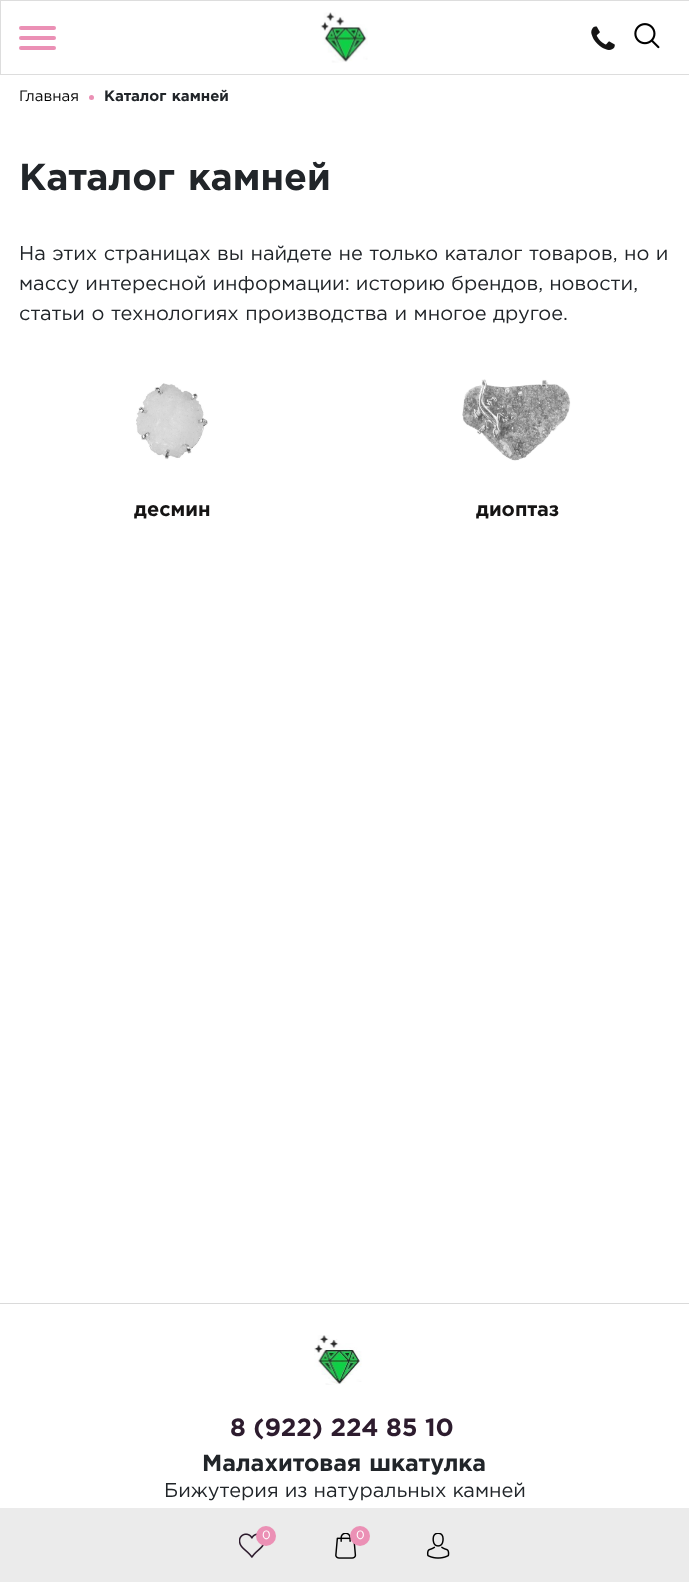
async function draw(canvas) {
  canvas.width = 689;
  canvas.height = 1582;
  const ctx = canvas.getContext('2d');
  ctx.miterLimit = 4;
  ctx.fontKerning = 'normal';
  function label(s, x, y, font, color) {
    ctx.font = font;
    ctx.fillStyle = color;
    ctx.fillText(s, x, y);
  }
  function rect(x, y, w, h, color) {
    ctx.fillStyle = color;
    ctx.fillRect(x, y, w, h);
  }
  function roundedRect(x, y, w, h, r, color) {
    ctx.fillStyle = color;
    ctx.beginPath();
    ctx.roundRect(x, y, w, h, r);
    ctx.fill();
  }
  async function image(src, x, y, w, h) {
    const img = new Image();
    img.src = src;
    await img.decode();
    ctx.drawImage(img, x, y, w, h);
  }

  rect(0, 0, 689, 1582, '#fff');
  label('Главная', 19, 101, '15px Gotham', '#000');
  ctx.fillStyle = '#eb90b5';
  ctx.beginPath();
  ctx.arc(91.5, 97.5, 2.5, 0, 2 * Math.PI);
  ctx.fill();
  ctx.wordSpacing = '1px';
  label('Каталог камней', 104, 101, 'bold 15px Gotham', '#212529');
  ctx.wordSpacing = '2px';
  label('Каталог камней', 19, 190, 'bold 37.5px Gotham', '#212529');
  ctx.wordSpacing = '0.4px';
  label('На этих страницах вы найдете не только каталог товаров, но и', 19, 260, '20px Gotham', '#212529');
  ctx.wordSpacing = '0px';
  label('массу интересной информации: историю брендов, новости,', 19, 290, '20px Gotham', '#212529');
  ctx.wordSpacing = '0.5px';
  label('статьи о технологиях производства и многое другое.', 19, 320, '20px Gotham', '#212529');
  await image('assets/img1.png', 136, 383, 72, 77);
  ctx.wordSpacing = '0px';
  label('десмин', 134, 516, 'bold 20px Gotham', '#151414');
  await image('assets/img2.png', 462, 379, 109, 82);
  label('диоптаз', 476, 516, 'bold 20px Gotham', '#151414');
  rect(0, 1303, 689, 1, '#dadada');
  await image('assets/img3.png', 314, 1335, 48, 50);
  label('8 (922) 224 85 10', 230, 1436, 'bold 25px Gotham', '#2d1c2e');
  ctx.wordSpacing = '1px';
  label('Малахитовая шкатулка', 202, 1471, 'bold 23.25px Gotham', '#212529');
  ctx.wordSpacing = '0px';
  label('Бижутерия из натуральных камней', 164, 1497, '20px Gotham', '#212529');
  ctx.strokeStyle = '#ddd';
  ctx.strokeRect(0.5, 0.5, 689, 74);
  await image('assets/img4.png', 591, 26, 24, 24);
  await image('assets/img5.png', 634, 23, 26, 26);
  roundedRect(19, 36, 37, 4, 2, '#eb90b5');
  roundedRect(19, 26, 37, 4, 2, '#eb90b5');
  roundedRect(19, 46, 37, 4, 2, '#eb90b5');
  await image('assets/img6.png', 320, 12, 48, 51);
  rect(0, 1508, 689, 74, '#ebebeb');
  await image('assets/img7.png', 239, 1533, 25, 25);
  ctx.fillStyle = '#eb90b5';
  ctx.beginPath();
  ctx.arc(266, 1536, 10, 0, 2 * Math.PI);
  ctx.fill();
  label('0', 262, 1539, '12px Gotham', '#fff');
  await image('assets/img8.png', 335, 1533, 22, 26);
  ctx.fillStyle = '#eb90b5';
  ctx.beginPath();
  ctx.arc(360, 1536, 10, 0, 2 * Math.PI);
  ctx.fill();
  label('0', 356, 1539, '12px Gotham', '#fff');
  await image('assets/img9.png', 426, 1533, 24, 26);
}

draw(document.querySelector('canvas'));
